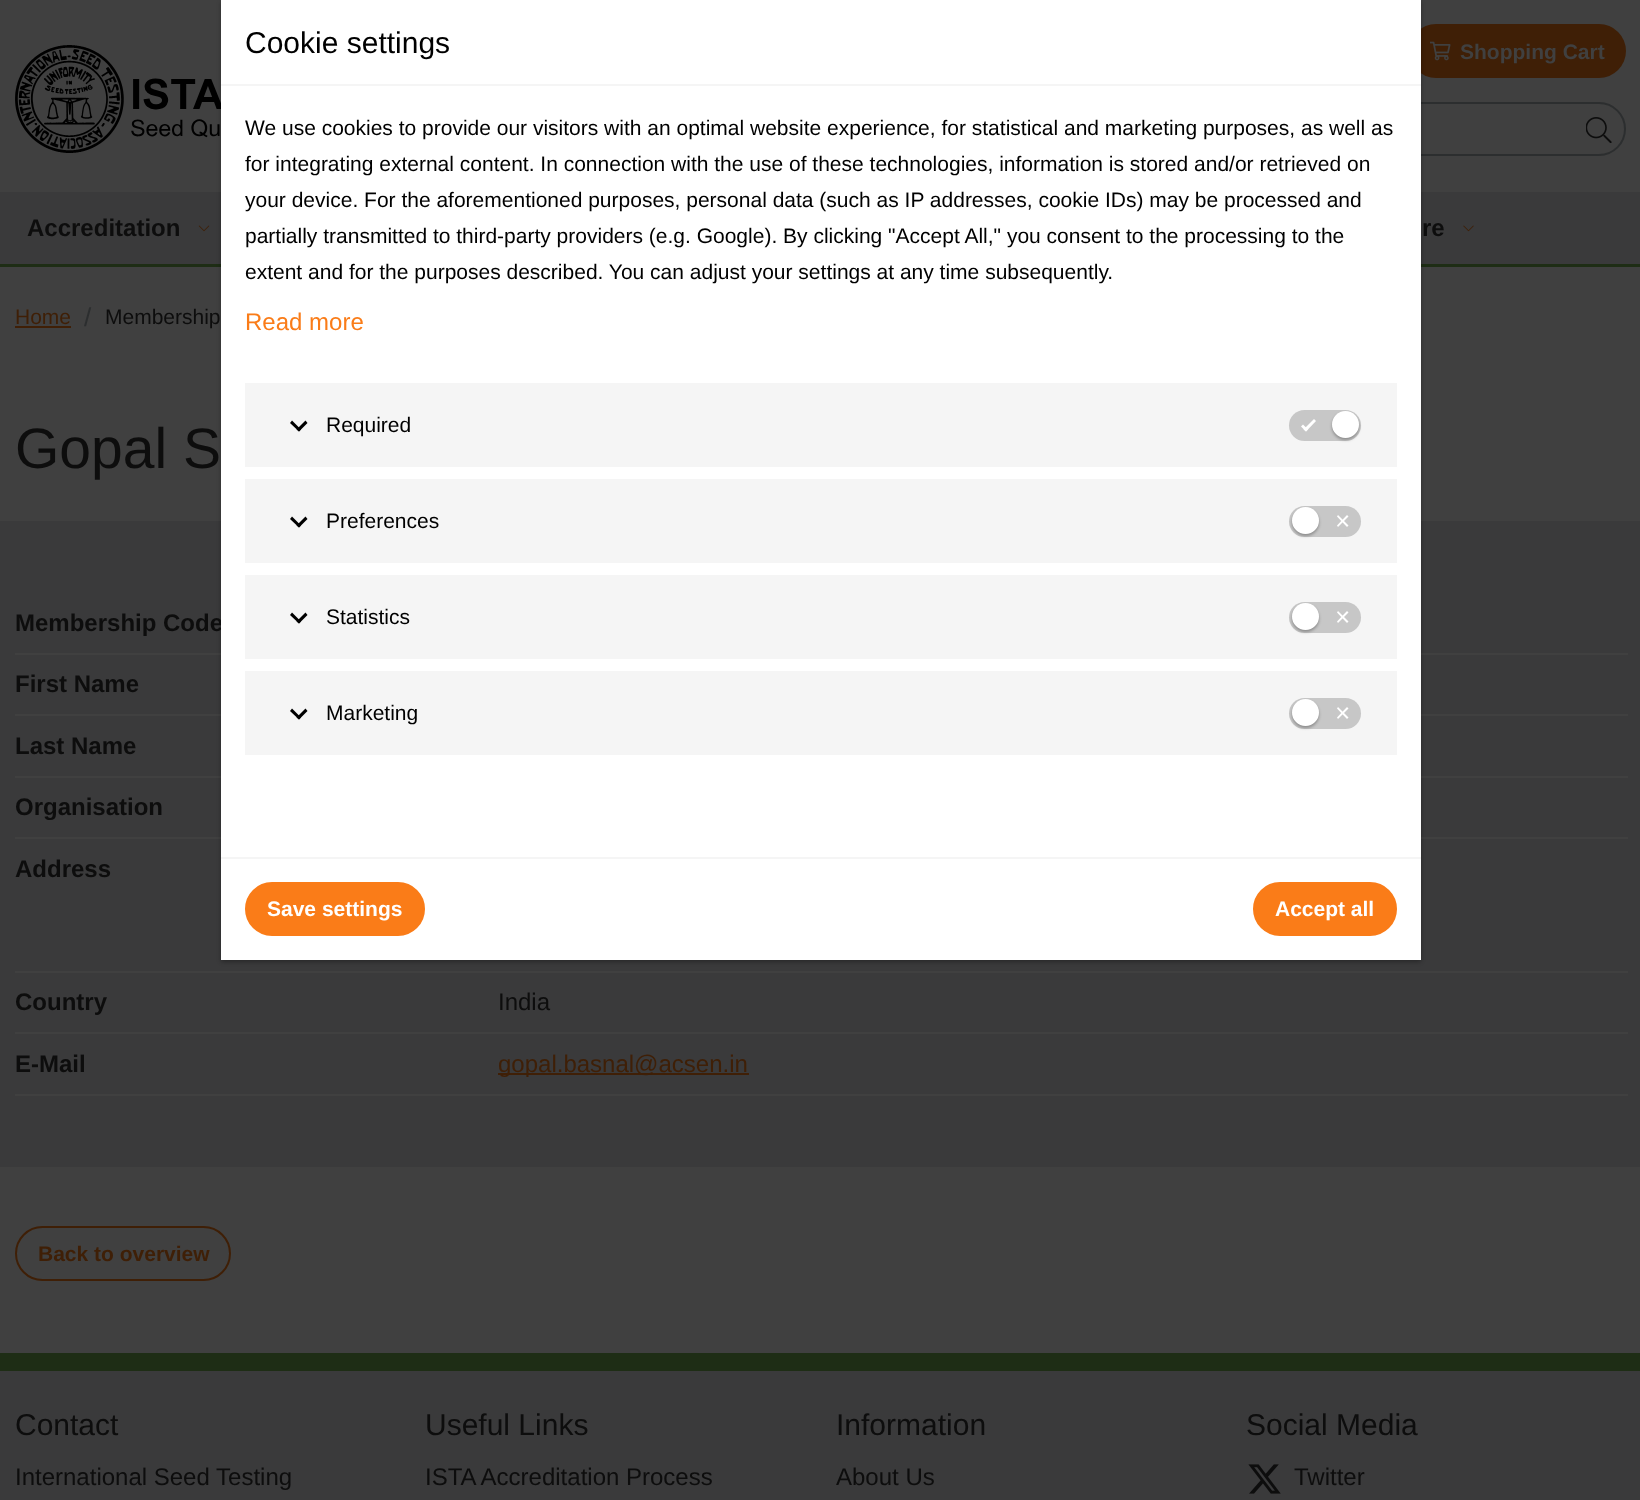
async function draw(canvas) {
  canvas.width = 1640;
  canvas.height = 1500;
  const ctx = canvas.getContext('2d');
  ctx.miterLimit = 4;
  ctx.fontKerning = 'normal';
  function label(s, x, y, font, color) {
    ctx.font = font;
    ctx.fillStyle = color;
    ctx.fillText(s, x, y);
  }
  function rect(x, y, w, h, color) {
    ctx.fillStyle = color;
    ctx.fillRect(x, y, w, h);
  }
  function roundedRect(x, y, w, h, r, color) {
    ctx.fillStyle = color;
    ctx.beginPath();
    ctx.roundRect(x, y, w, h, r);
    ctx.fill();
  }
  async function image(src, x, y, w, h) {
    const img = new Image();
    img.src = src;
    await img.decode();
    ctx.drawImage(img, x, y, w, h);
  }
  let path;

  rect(0, 0, 1640, 1500, '#404040');
  rect(0, 264, 1640, 3, '#1e2d15');
  await image('assets/img1.png', 15, 45, 206, 108);
  roundedRect(1409, 24, 217, 54, 27, '#3f1f06');
  ctx.beginPath();
  ctx.roundRect(1213, 103, 412, 52, 26);
  ctx.strokeStyle = '#2c2e2f';
  ctx.lineWidth = 2;
  ctx.stroke();
  rect(0, 192, 1640, 72, '#3a3a3b');
  rect(0, 521, 1640, 646, '#3a3a3b');
  rect(15, 653, 206, 2, '#404040');
  rect(1421, 653, 207, 2, '#404040');
  rect(15, 714, 206, 2, '#404040');
  rect(1421, 714, 207, 2, '#404040');
  rect(15, 776, 206, 2, '#404040');
  rect(1421, 776, 207, 2, '#404040');
  rect(15, 837, 206, 2, '#404040');
  rect(1421, 837, 207, 2, '#404040');
  ctx.fillStyle = '#0000004d';
  ctx.filter = 'blur(2px)';
  ctx.beginPath();
  ctx.rect(221, 2, 1200, 960);
  ctx.fill();
  ctx.filter = 'none';
  label('Membership Code', 15, 631, 'bold 24px Liberation Sans', '#0d0d0d');
  rect(221, 0, 1200, 960, '#fff');
  rect(221, 84, 1200, 2, '#f5f5f5');
  label('Cookie settings', 245, 53, '30px Liberation Sans', '#000');
  label('We use cookies to provide our visitors with an optimal website experience, for statistical and marketing purposes, as well as', 245, 135, '21px Liberation Sans', '#000');
  label('for integrating external content. In connection with the use of these technologies, information is stored and/or retrieved on', 245, 171, '21px Liberation Sans', '#000');
  label('your device. For the aforementioned purposes, personal data (such as IP addresses, cookie IDs) may be processed and', 245, 207, '21px Liberation Sans', '#000');
  label('partially transmitted to third-party providers (e.g. Google). By clicking "Accept All," you consent to the processing to the', 245, 243, '21px Liberation Sans', '#000');
  label('extent and for the purposes described. You can adjust your settings at any time subsequently.', 245, 279, '21px Liberation Sans', '#000');
  label('Read more', 245, 330, '24px Liberation Sans', '#fa7c18');
  rect(245, 383, 1152, 84, '#f5f5f5');
  ctx.fillStyle = '#000';
  path = new Path2D('M305.5 420.5L307.5 423L299 431.5L296.5 429.5Z');
  ctx.fill(path);
  path = new Path2D('M292 420.5L301 429.5L299 431.5L290 423Z');
  ctx.fill(path);
  label('Required', 326, 432, '21px Liberation Sans', '#000');
  roundedRect(1289, 410, 72, 31, 15.5, '#c7c7c7');
  ctx.fillStyle = '#fff';
  path = new Path2D('M1314 419L1316 421L1306 431.5L1303.5 429.5Z');
  ctx.fill(path);
  path = new Path2D('M1303 424.5L1308 429.5L1306 431.5L1301 426.5Z');
  ctx.fill(path);
  ctx.fillStyle = '#0000004d';
  ctx.filter = 'blur(1.5px)';
  ctx.beginPath();
  ctx.roundRect(1332, 413, 27, 27, 13.5);
  ctx.fill();
  ctx.filter = 'none';
  ctx.fillStyle = '#fff';
  ctx.beginPath();
  ctx.arc(1345.5, 424.5, 13.5, 0, 2 * Math.PI);
  ctx.fill();
  rect(245, 479, 1152, 84, '#f5f5f5');
  ctx.fillStyle = '#000';
  path = new Path2D('M305.5 516.5L307.5 519L299 527.5L296.5 525.5Z');
  ctx.fill(path);
  path = new Path2D('M292 516.5L301 525.5L299 527.5L290 519Z');
  ctx.fill(path);
  label('Preferences', 326, 528, '21px Liberation Sans', '#000');
  roundedRect(1289, 506, 72, 31, 15.5, '#c7c7c7');
  ctx.fillStyle = '#0000004d';
  ctx.filter = 'blur(1.5px)';
  ctx.beginPath();
  ctx.roundRect(1292, 509, 27, 27, 13.5);
  ctx.fill();
  ctx.filter = 'none';
  ctx.fillStyle = '#fff';
  ctx.beginPath();
  ctx.arc(1305.5, 520.5, 13.5, 0, 2 * Math.PI);
  ctx.fill();
  path = new Path2D('M1347 515L1348.5 516.5L1338 527L1337 525.5Z');
  ctx.fill(path);
  path = new Path2D('M1337 516.5L1338 515L1348.5 525.5L1347 527Z');
  ctx.fill(path);
  rect(245, 575, 1152, 84, '#f5f5f5');
  ctx.fillStyle = '#000';
  path = new Path2D('M305.5 612.5L307.5 615L299 623.5L296.5 621.5Z');
  ctx.fill(path);
  path = new Path2D('M292 612.5L301 621.5L299 623.5L290 615Z');
  ctx.fill(path);
  label('Statistics', 326, 624, '21px Liberation Sans', '#000');
  roundedRect(1289, 602, 72, 31, 15.5, '#c7c7c7');
  ctx.fillStyle = '#0000004d';
  ctx.filter = 'blur(1.5px)';
  ctx.beginPath();
  ctx.roundRect(1292, 605, 27, 27, 13.5);
  ctx.fill();
  ctx.filter = 'none';
  ctx.fillStyle = '#fff';
  ctx.beginPath();
  ctx.arc(1305.5, 616.5, 13.5, 0, 2 * Math.PI);
  ctx.fill();
  path = new Path2D('M1347 611L1348.5 612.5L1338 623L1337 621.5Z');
  ctx.fill(path);
  path = new Path2D('M1337 612.5L1338 611L1348.5 621.5L1347 623Z');
  ctx.fill(path);
  rect(245, 671, 1152, 84, '#f5f5f5');
  ctx.fillStyle = '#000';
  path = new Path2D('M305.5 708.5L307.5 711L299 719.5L296.5 717.5Z');
  ctx.fill(path);
  path = new Path2D('M292 708.5L301 717.5L299 719.5L290 711Z');
  ctx.fill(path);
  label('Marketing', 326, 720, '21px Liberation Sans', '#000');
  roundedRect(1289, 698, 72, 31, 15.5, '#c7c7c7');
  ctx.fillStyle = '#0000004d';
  ctx.filter = 'blur(1.5px)';
  ctx.beginPath();
  ctx.roundRect(1292, 701, 27, 27, 13.5);
  ctx.fill();
  ctx.filter = 'none';
  ctx.fillStyle = '#fff';
  ctx.beginPath();
  ctx.arc(1305.5, 712.5, 13.5, 0, 2 * Math.PI);
  ctx.fill();
  path = new Path2D('M1347 707L1348.5 708.5L1338 719L1337 717.5Z');
  ctx.fill(path);
  path = new Path2D('M1337 708.5L1338 707L1348.5 717.5L1347 719Z');
  ctx.fill(path);
  rect(221, 857, 1200, 2, '#f5f5f5');
  ctx.fillStyle = '#fa7c18';
  ctx.beginPath();
  ctx.roundRect(246, 883, 178, 52, 26);
  ctx.fill();
  ctx.strokeStyle = '#fa7c18';
  ctx.stroke();
  label('Save settings', 267, 916, 'bold 21px Liberation Sans', '#fff');
  ctx.fillStyle = '#fa7c18';
  ctx.beginPath();
  ctx.roundRect(1254, 883, 142, 52, 26);
  ctx.fill();
  ctx.stroke();
  label('Accept all', 1275, 916, 'bold 21px Liberation Sans', '#fff');
  await image('assets/img2.png', 1430, 41, 21, 20);
  label('Shopping Cart', 1460, 59, 'bold 21px Liberation Sans', '#404040');
  await image('assets/img3.png', 1586, 117, 26, 26);
  label('Accreditation', 27, 236, 'bold 24px Liberation Sans', '#0d0d0d');
  await image('assets/img4.png', 198, 225, 12, 7);
  label('re', 1422, 236, 'bold 24px Liberation Sans', '#0d0d0d');
  await image('assets/img5.png', 1463, 225, 11, 7);
  label('Home', 15, 324, '21px Liberation Sans', '#3f1f06');
  rect(15, 326, 56, 2, '#3f1f06');
  label('/', 84, 326, '26px Liberation Sans', '#2c2e2f');
  label('Membership', 105, 324, '21px Liberation Sans', '#0d0d0d');
  label('Gopal S', 15, 468, '57px Liberation Sans', '#0d0d0d');
  label('First Name', 15, 692, 'bold 24px Liberation Sans', '#0d0d0d');
  label('Last Name', 15, 754, 'bold 24px Liberation Sans', '#0d0d0d');
  label('Organisation', 15, 815, 'bold 24px Liberation Sans', '#0d0d0d');
  label('Address', 15, 877, 'bold 24px Liberation Sans', '#0d0d0d');
  rect(15, 971, 1613, 2, '#404040');
  label('Country', 15, 1010, 'bold 24px Liberation Sans', '#0d0d0d');
  rect(15, 1032, 1613, 2, '#404040');
  label('India', 498, 1010, '24px Liberation Sans', '#0d0d0d');
  label('E-Mail', 15, 1072, 'bold 24px Liberation Sans', '#0d0d0d');
  rect(15, 1094, 1613, 2, '#404040');
  rect(498, 1073, 251, 2, '#3f1f06');
  label('gopal.basnal@acsen.in', 498, 1072, '24px Liberation Sans', '#3f1f06');
  ctx.beginPath();
  ctx.roundRect(16, 1227, 214, 53, 26.5);
  ctx.strokeStyle = '#3f1f06';
  ctx.stroke();
  label('Back to overview', 38, 1261, 'bold 21px Liberation Sans', '#3f1f06');
  rect(0, 1353, 1640, 18, '#1e2d15');
  rect(0, 1371, 1640, 129, '#3a3a3b');
  label('Contact', 15, 1435, '30px Liberation Sans', '#0d0d0d');
  label('International Seed Testing', 15, 1485, '24px Liberation Sans', '#0d0d0d');
  label('Useful Links', 425, 1435, '30px Liberation Sans', '#0d0d0d');
  label('ISTA Accreditation Process', 425, 1485, '24px Liberation Sans', '#0d0d0d');
  label('Information', 836, 1435, '30px Liberation Sans', '#0d0d0d');
  label('About Us', 836, 1485, '24px Liberation Sans', '#0d0d0d');
  label('Social Media', 1246, 1435, '30px Liberation Sans', '#0d0d0d');
  await image('assets/img6.png', 1248, 1464, 33, 30);
  label('Twitter', 1294, 1485, '24px Liberation Sans', '#0d0d0d');
}

draw(document.querySelector('canvas'));
